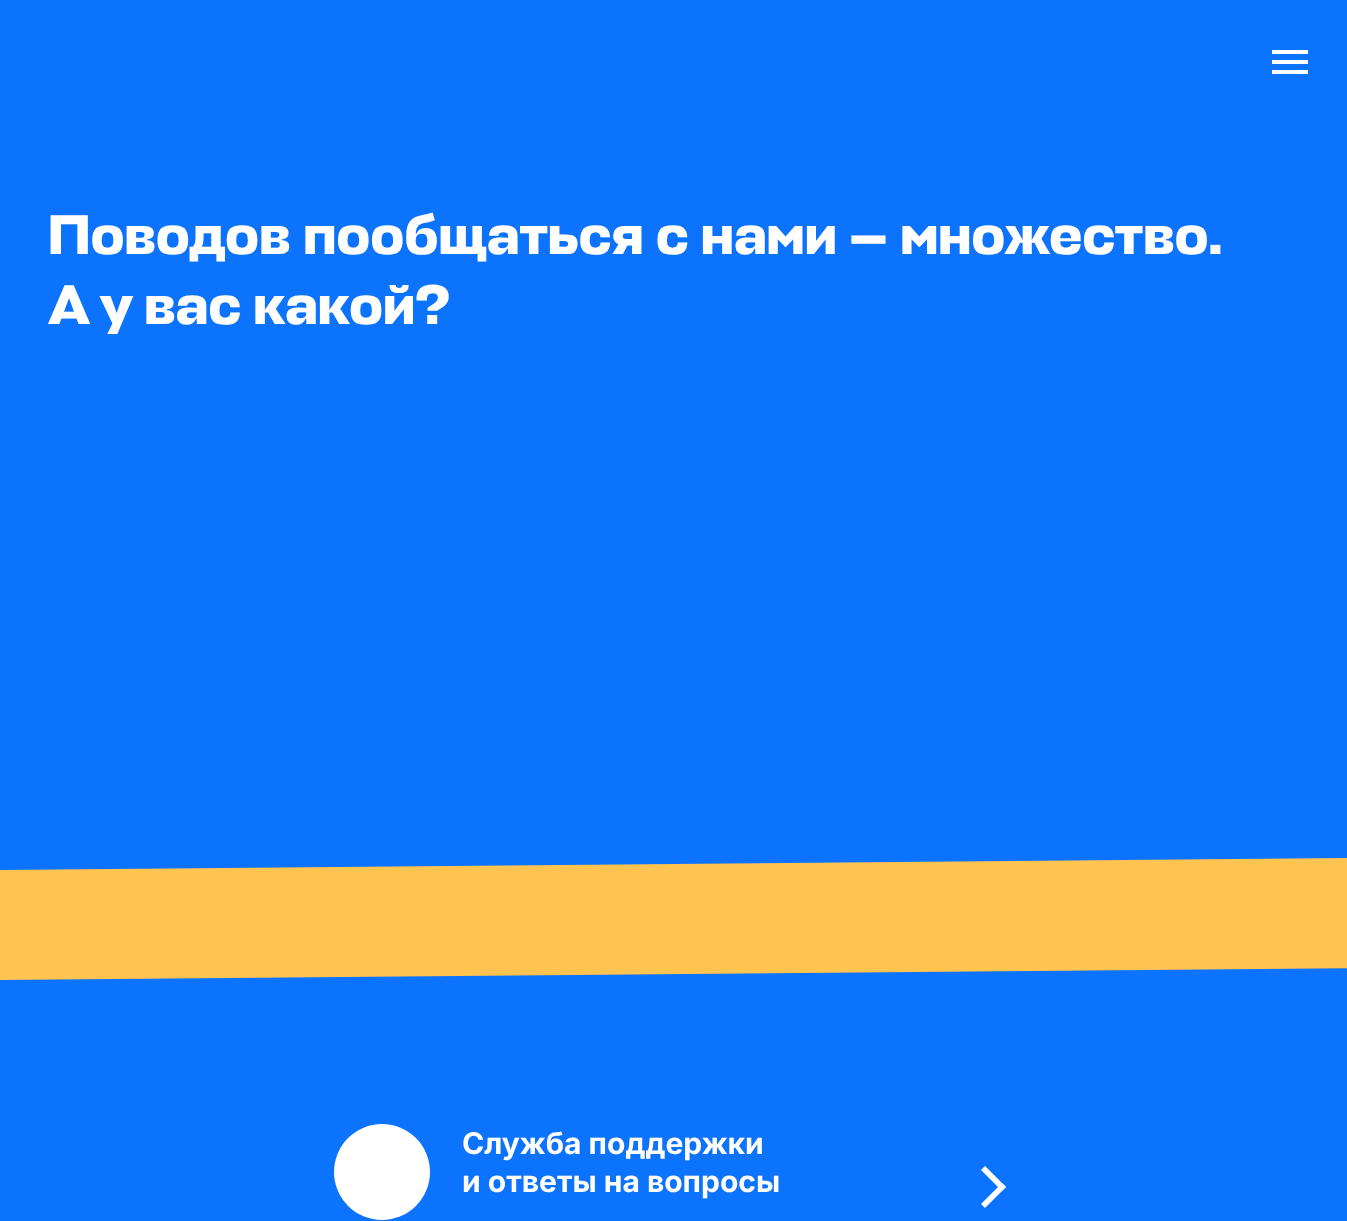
async function draw(canvas) {
  canvas.width = 1347;
  canvas.height = 1221;
  const ctx = canvas.getContext('2d');
  ctx.miterLimit = 4;
  ctx.fontKerning = 'normal';
  function label(s, x, y, font, color) {
    ctx.font = font;
    ctx.fillStyle = color;
    ctx.fillText(s, x, y);
  }
  function rect(x, y, w, h, color) {
    ctx.fillStyle = color;
    ctx.fillRect(x, y, w, h);
  }
  let gradient, path;

  rect(0, 0, 1347, 1221, '#0c73fe');
  gradient = ctx.createLinearGradient(1290, 50, 1290, 60);
  gradient.addColorStop(0.4, '#fff');
  gradient.addColorStop(0.4, '#0c73fe');
  gradient.addColorStop(1, '#0c73fe');
  ctx.fillStyle = gradient;
  ctx.fillRect(1272, 50, 36, 4);
  gradient = ctx.createLinearGradient(1290, 60, 1290, 70);
  gradient.addColorStop(0.4, '#fff');
  gradient.addColorStop(0.4, '#0c73fe');
  gradient.addColorStop(1, '#0c73fe');
  ctx.fillStyle = gradient;
  ctx.fillRect(1272, 60, 36, 4);
  gradient = ctx.createLinearGradient(1290, 70, 1290, 80);
  gradient.addColorStop(0.4, '#fff');
  gradient.addColorStop(0.4, '#0c73fe');
  gradient.addColorStop(1, '#0c73fe');
  ctx.fillStyle = gradient;
  ctx.fillRect(1272, 70, 36, 4);
  label('Поводов пообщаться с нами — множество.', 48, 254, 'bold 56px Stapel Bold', '#fff');
  label('А у вас какой?', 48, 324, 'bold 56px Stapel Bold', '#fff');
  ctx.fillStyle = '#ffc350';
  path = new Path2D('M-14 870L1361 858L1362 968L-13 980Z');
  ctx.fill(path);
  ctx.fillStyle = '#fff';
  ctx.beginPath();
  ctx.arc(382, 1172, 48, 0, 2 * Math.PI);
  ctx.fill();
  label('Служба поддержки', 462, 1154, 'bold 30px Inter', '#fff');
  label('и ответы на вопросы', 462, 1192, 'bold 30px Inter', '#fff');
  path = new Path2D('M981 1170L985 1166L1006 1187L1002 1191Z');
  ctx.fill(path);
  path = new Path2D('M981 1204L1002 1183L1006 1187L985 1208Z');
  ctx.fill(path);
}

draw(document.querySelector('canvas'));
